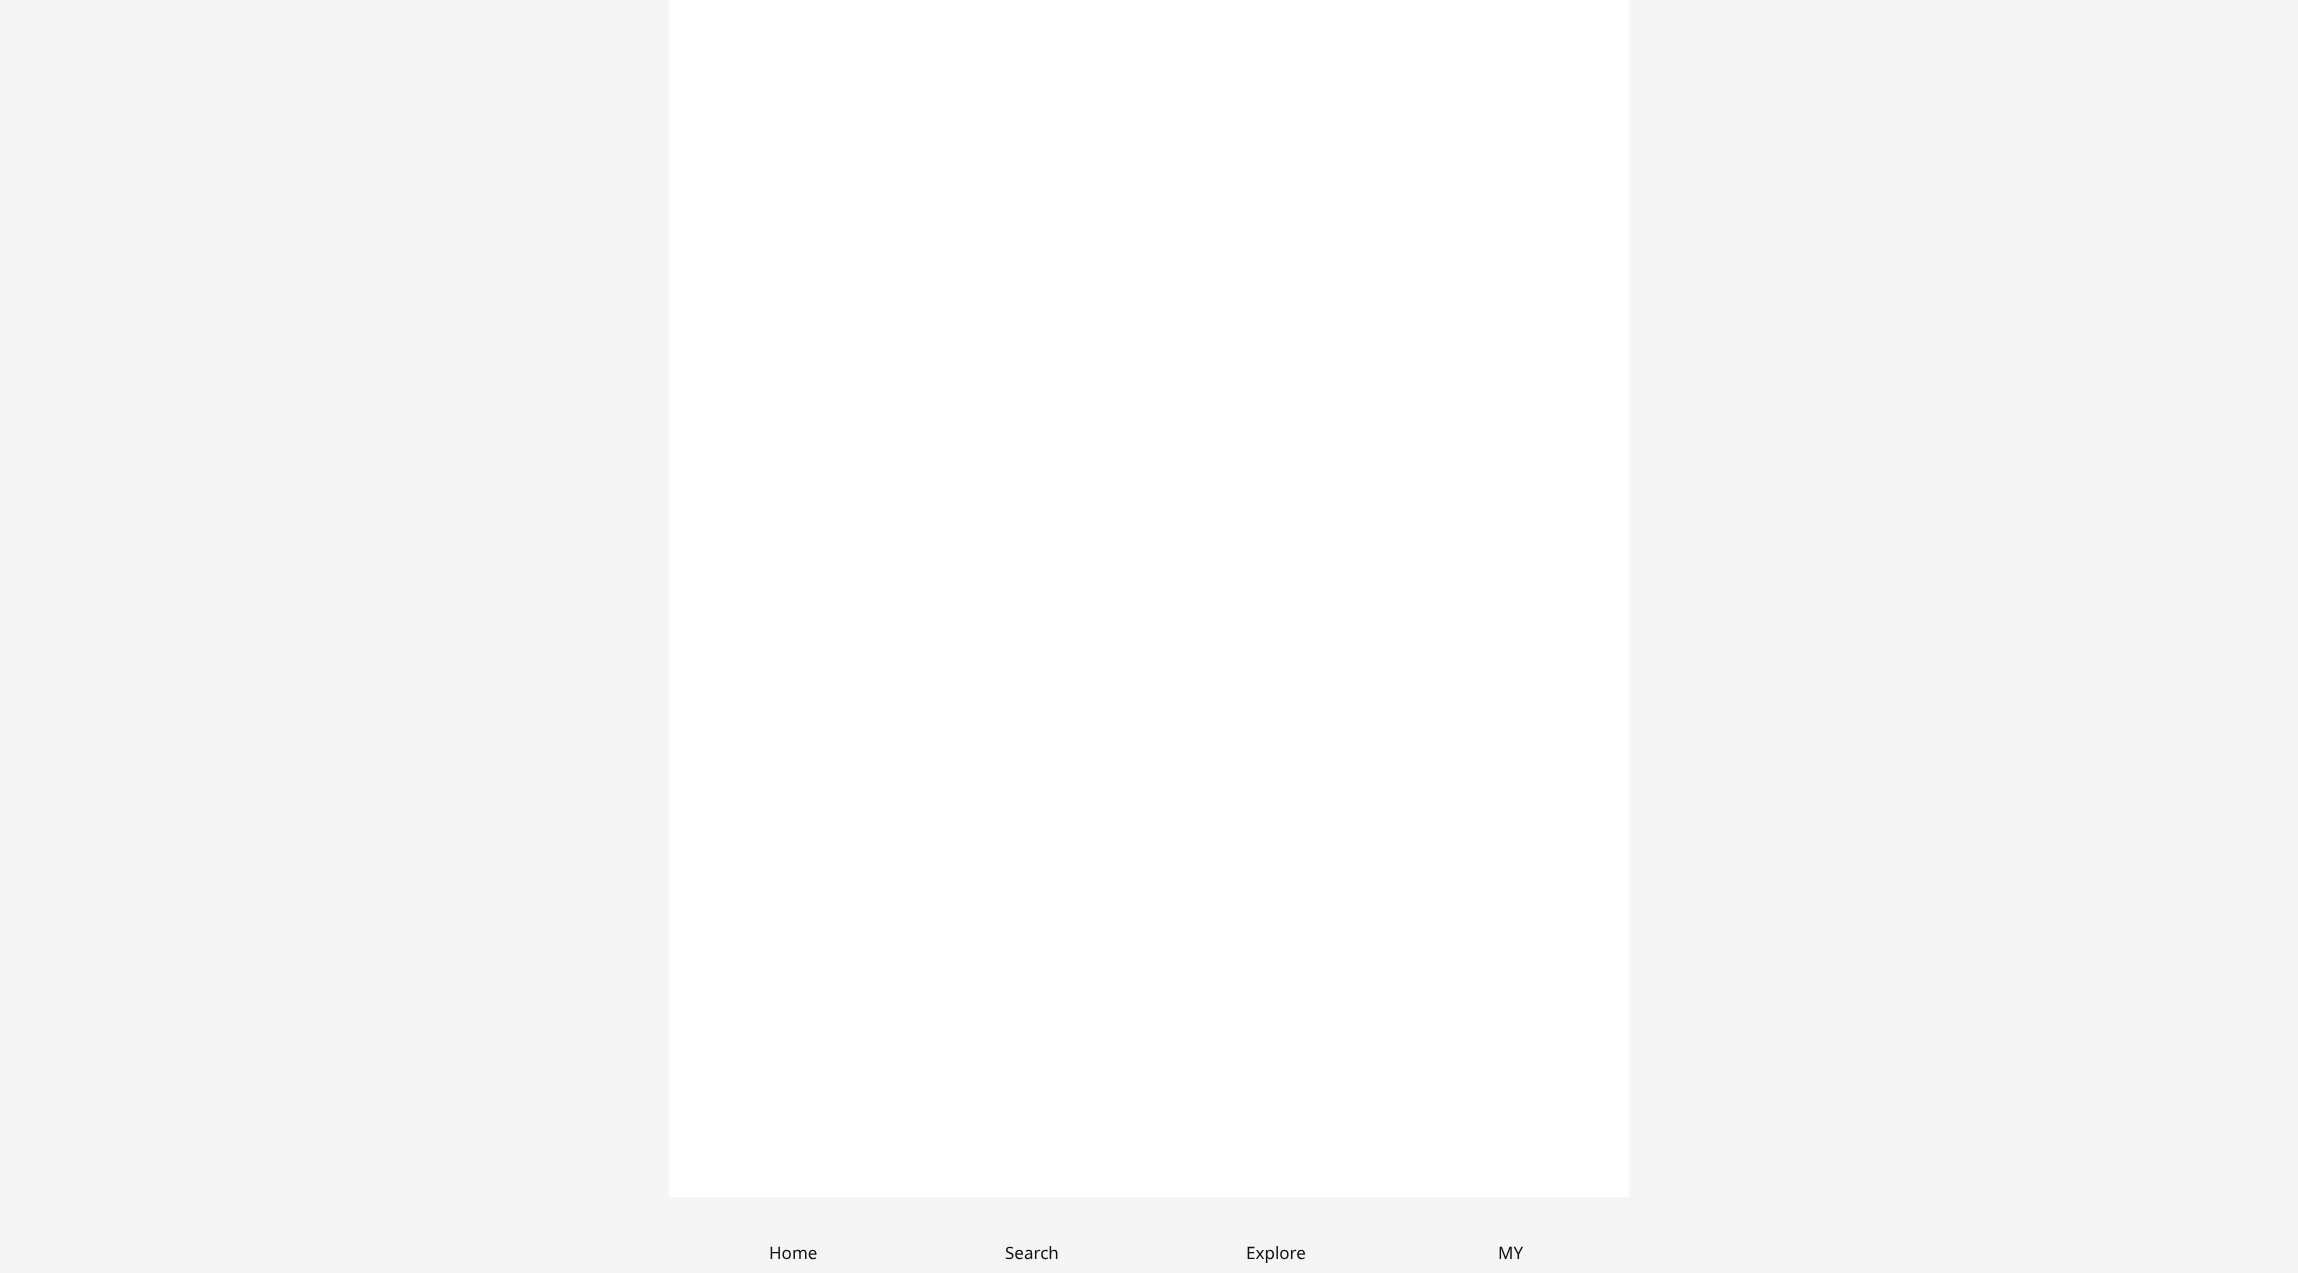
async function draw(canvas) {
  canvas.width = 2298;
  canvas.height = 1273;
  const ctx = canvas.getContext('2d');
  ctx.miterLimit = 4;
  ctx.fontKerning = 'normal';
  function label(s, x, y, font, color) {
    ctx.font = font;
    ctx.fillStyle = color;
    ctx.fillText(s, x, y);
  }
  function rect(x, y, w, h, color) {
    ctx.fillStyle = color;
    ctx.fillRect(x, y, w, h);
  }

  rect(0, 0, 2298, 1273, '#f5f5f5');
  rect(669, 0, 960, 1197, '#fff');
  label('Home', 769, 1259, '17px Noto Sans', '#111');
  label('Search', 1005, 1259, '17px Noto Sans', '#111');
  label('Explore', 1246, 1259, '17px Noto Sans', '#111');
  label('MY', 1498, 1259, '17px Noto Sans', '#111');
}

draw(document.querySelector('canvas'));
